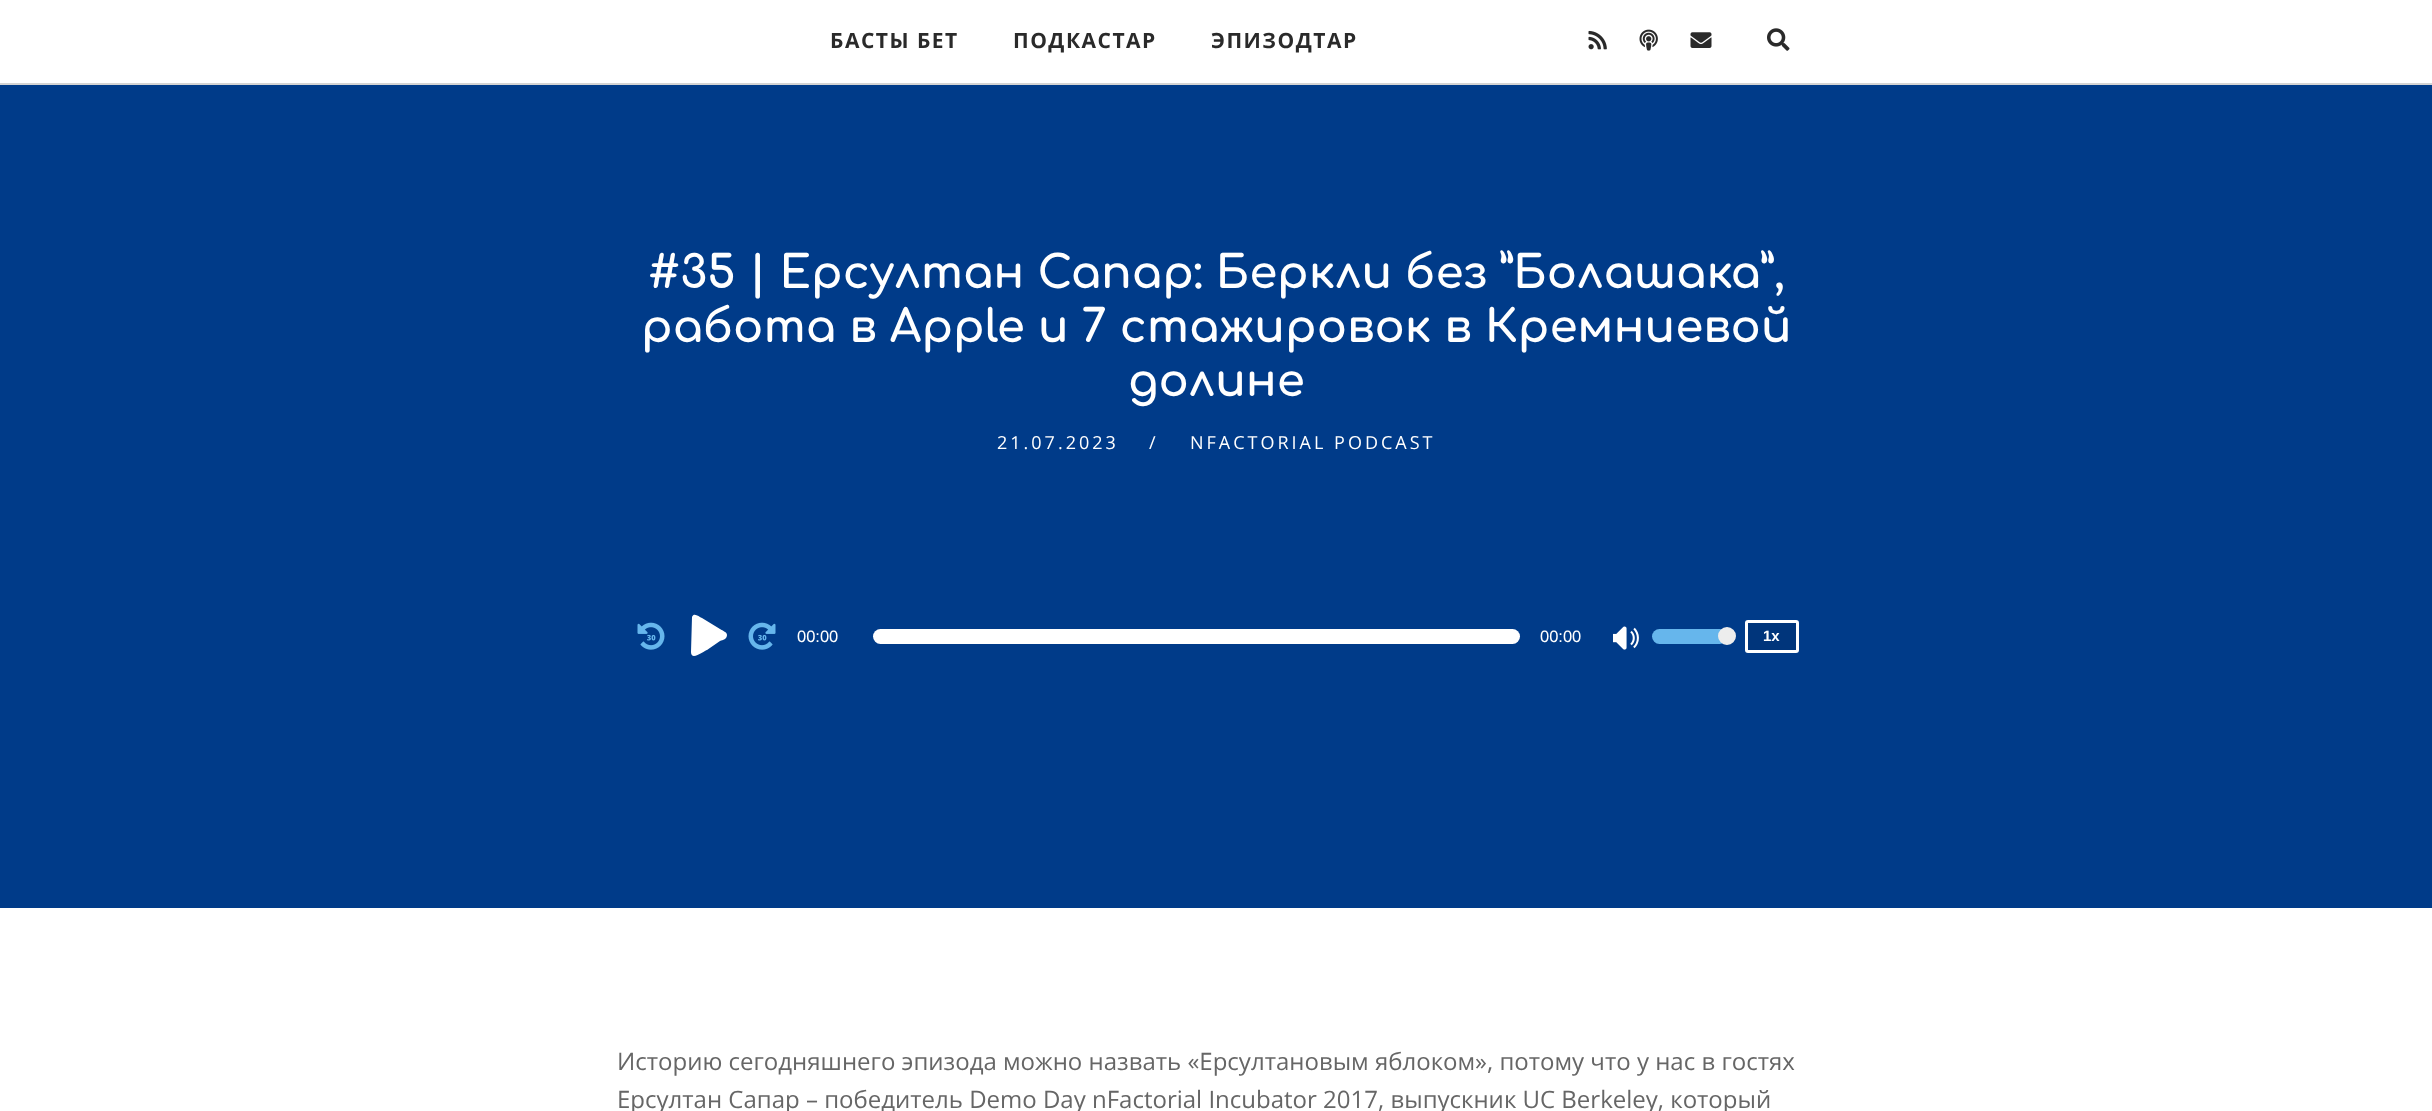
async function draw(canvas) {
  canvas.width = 2432;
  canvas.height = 1111;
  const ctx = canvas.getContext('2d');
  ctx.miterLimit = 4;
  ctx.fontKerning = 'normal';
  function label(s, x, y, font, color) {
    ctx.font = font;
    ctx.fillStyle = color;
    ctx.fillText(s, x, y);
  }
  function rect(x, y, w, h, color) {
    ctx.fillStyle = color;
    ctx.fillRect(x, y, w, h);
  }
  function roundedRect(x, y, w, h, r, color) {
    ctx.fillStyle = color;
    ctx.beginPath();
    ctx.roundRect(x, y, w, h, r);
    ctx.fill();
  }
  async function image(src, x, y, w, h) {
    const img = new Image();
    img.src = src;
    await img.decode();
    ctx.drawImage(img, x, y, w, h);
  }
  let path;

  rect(0, 0, 2432, 1111, '#fff');
  ctx.letterSpacing = '1.5px';
  label('БАСТЫ БЕТ', 830, 48, 'bold 21px Open Sans', '#2a2a2a');
  label('ПОДКАСТАР', 1013, 48, 'bold 21px Open Sans', '#2a2a2a');
  label('ЭПИЗОДТАР', 1211, 48, 'bold 21px Open Sans', '#2a2a2a');
  await image('assets/img1.png', 1588, 30, 19, 20);
  await image('assets/img2.png', 1639, 29, 19, 22);
  await image('assets/img3.png', 1690, 32, 22, 16);
  await image('assets/img4.png', 1767, 28, 23, 23);
  rect(0, 83, 2432, 2, '#d3d3d3');
  rect(0, 85, 2432, 823, '#003b89');
  ctx.letterSpacing = '0px';
  label('#35 | Ерсултан Сапар: Беркли без ”Болашака”,', 648, 288, 'bold 45px Comfortaa', '#fff');
  label('работа в Apple и 7 стажировок в Кремниевой', 641, 342, 'bold 45px Comfortaa', '#fff');
  label('долине', 1128, 396, 'bold 45px Comfortaa', '#fff');
  ctx.letterSpacing = '3px';
  label('21.07.2023', 997, 449, '18px Open Sans', '#fff');
  label('/', 1149, 449, '18px Open Sans', '#fff');
  label('NFACTORIAL PODCAST', 1190, 449, '18px Open Sans', '#fff');
  await image('assets/img5.png', 637, 622, 28, 28);
  path = new Path2D('M691 652L692 617C694 612 699 617 702 618L720 629C723 631 727 632 727 635C727 639 723 640 720 641L707 650C705 650 691 662 691 652Z');
  ctx.fill(path);
  await image('assets/img6.png', 748, 622, 28, 28);
  ctx.letterSpacing = '0px';
  label('00:00', 797, 642, '16.5px Liberation Sans', '#fff');
  roundedRect(873, 629, 647, 15, 7.5, '#fff');
  label('00:00', 1540, 642, '16.5px Liberation Sans', '#fff');
  await image('assets/img7.png', 1613, 626, 26, 24);
  roundedRect(1652, 629, 75, 15, 7.5, '#66b6ec');
  ctx.fillStyle = '#ededed';
  ctx.beginPath();
  ctx.arc(1727, 636, 8, 0, 2 * Math.PI);
  ctx.fill();
  ctx.strokeStyle = '#ededed';
  ctx.lineWidth = 2;
  ctx.stroke();
  ctx.fillStyle = '#00357b';
  ctx.beginPath();
  ctx.roundRect(1746.5, 621.5, 51, 30, 1.5);
  ctx.fill();
  ctx.strokeStyle = '#fff';
  ctx.lineWidth = 3;
  ctx.stroke();
  label('1x', 1763, 641, 'bold 15px Liberation Sans', '#fff');
  label('Историю сегодняшнего эпизода можно назвать «Ерсултановым яблоком», потому что у нас в гостях', 617, 1070, '24px Open Sans', '#666');
  label('Ерсултан Сапар – победитель Demo Day nFactorial Incubator 2017, выпускник UC Berkeley, который', 617, 1108, '24px Open Sans', '#666');
}

draw(document.querySelector('canvas'));
